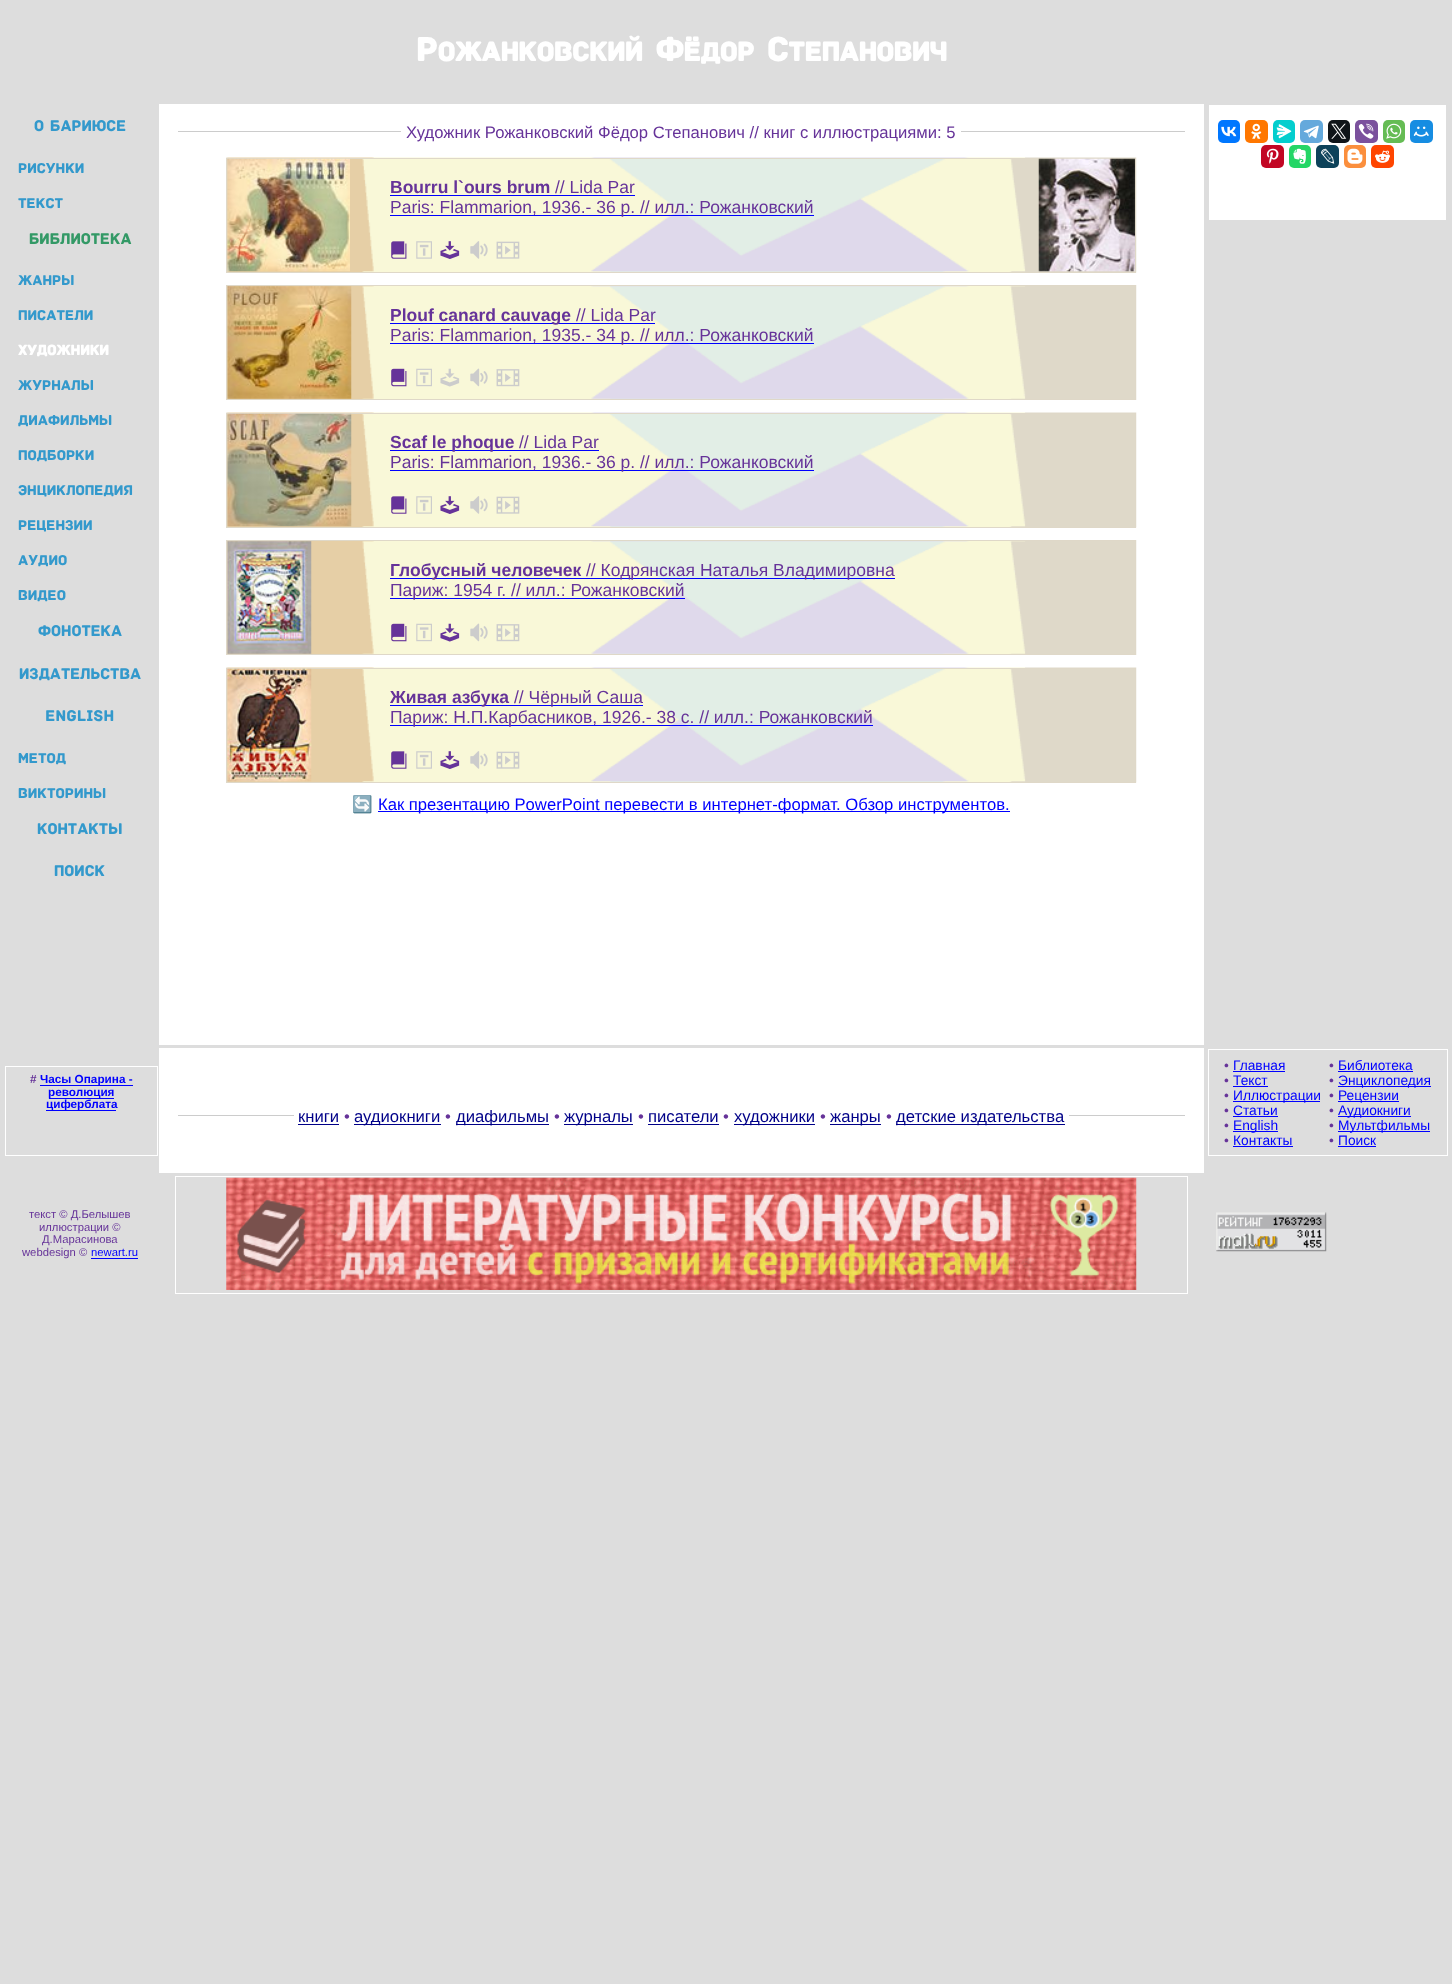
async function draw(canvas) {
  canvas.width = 1452;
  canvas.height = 1984;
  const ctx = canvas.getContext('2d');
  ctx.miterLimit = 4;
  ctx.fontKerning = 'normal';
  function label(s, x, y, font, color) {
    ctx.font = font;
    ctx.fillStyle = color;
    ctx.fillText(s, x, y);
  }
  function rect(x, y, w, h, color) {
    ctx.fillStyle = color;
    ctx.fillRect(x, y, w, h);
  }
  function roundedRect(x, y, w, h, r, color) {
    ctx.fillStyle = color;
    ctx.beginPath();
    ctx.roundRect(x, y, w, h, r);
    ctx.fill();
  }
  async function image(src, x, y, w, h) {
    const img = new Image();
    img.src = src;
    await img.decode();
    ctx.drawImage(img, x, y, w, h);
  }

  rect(0, 0, 1452, 1984, '#ddd');
  label('Рожанковский Фёдор Степанович', 416, 61, 'bold 35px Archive', '#fff');
  label('О БАРИЮСЕ', 34, 131, '16.25px Archive', '#39c');
  label('РИСУНКИ', 18, 173, '15px Archive', '#39c');
  label('ТЕКСТ', 18, 208, '15px Archive', '#39c');
  label('БИБЛИОТЕКА', 29, 244, '16.25px Archive', '#396');
  label('ЖАНРЫ', 18, 285, '15px Archive', '#39c');
  label('ПИСАТЕЛИ', 18, 320, '15px Archive', '#39c');
  label('ХУДОЖНИКИ', 18, 355, 'bold 15px Archive', '#fff');
  label('ЖУРНАЛЫ', 18, 390, '15px Archive', '#39c');
  label('ДИАФИЛЬМЫ', 18, 425, '15px Archive', '#39c');
  label('ПОДБОРКИ', 18, 460, '15px Archive', '#39c');
  label('ЭНЦИКЛОПЕДИЯ', 18, 495, '15px Archive', '#39c');
  label('РЕЦЕНЗИИ', 18, 530, '15px Archive', '#39c');
  label('АУДИО', 18, 565, '15px Archive', '#39c');
  label('ВИДЕО', 18, 600, '15px Archive', '#39c');
  label('ФОНОТЕКА', 38, 636, '16.25px Archive', '#39c');
  label('ИЗДАТЕЛЬСТВА', 19, 679, '16.25px Archive', '#39c');
  label('ENGLISH', 45, 721, '16.25px Archive', '#39c');
  label('МЕТОД', 18, 763, '15px Archive', '#39c');
  label('ВИКТОРИНЫ', 18, 798, '15px Archive', '#39c');
  label('КОНТАКТЫ', 37, 834, '16.25px Archive', '#39c');
  label('ПОИСК', 54, 876, '16.25px Archive', '#39c');
  rect(159, 104, 1045, 941, '#fff');
  rect(178, 131, 1007, 1, '#ccc');
  rect(401, 131, 560, 1, '#fff');
  label('Художник Рожанковский Фёдор Степанович // книг с иллюстрациями: 5', 406, 138, '16.65px Liberation Sans', '#639');
  await image('assets/img1.png', 226, 157, 911, 116);
  ctx.strokeStyle = '#dfd8c8';
  ctx.strokeRect(226.5, 158.5, 909, 114);
  await image('assets/img2.png', 227, 158, 123, 114);
  label('Bourru l`ours brum', 390, 193, 'bold 17.5px Liberation Sans', '#639');
  rect(390, 195, 245, 1, '#00f');
  label('// Lida Par', 555, 193, '17.5px Liberation Sans', '#639');
  rect(390, 215, 424, 1, '#00f');
  label('Paris: Flammarion, 1936.- 36 p. // илл.: Рожанковский', 390, 213, '17.5px Liberation Sans', '#639');
  await image('assets/img3.png', 391, 241, 16, 18);
  await image('assets/img4.png', 416, 241, 16, 18);
  await image('assets/img5.png', 440, 241, 20, 18);
  await image('assets/img6.png', 470, 241, 18, 18);
  await image('assets/img7.png', 496, 241, 24, 18);
  await image('assets/img8.png', 1038, 158, 97, 114);
  await image('assets/img9.png', 227, 285, 910, 115);
  ctx.strokeRect(226.5, 285.5, 909, 114);
  await image('assets/img10.png', 227, 286, 125, 113);
  rect(390, 323, 265, 1, '#00f');
  label('Plouf canard cauvage', 390, 321, 'bold 17.5px Liberation Sans', '#639');
  label('// Lida Par', 576, 321, '17.5px Liberation Sans', '#639');
  rect(390, 343, 424, 1, '#00f');
  label('Paris: Flammarion, 1935.- 34 p. // илл.: Рожанковский', 390, 341, '17.5px Liberation Sans', '#639');
  await image('assets/img11.png', 391, 368, 16, 19);
  await image('assets/img12.png', 416, 368, 16, 19);
  await image('assets/img13.png', 440, 368, 20, 19);
  await image('assets/img14.png', 470, 368, 18, 19);
  await image('assets/img15.png', 496, 369, 24, 18);
  await image('assets/img1.png', 226, 412, 911, 116);
  ctx.strokeRect(226.5, 413.5, 909, 114);
  await image('assets/img16.png', 227, 413, 125, 114);
  rect(390, 450, 209, 1, '#00f');
  label('Scaf le phoque', 390, 448, 'bold 17.5px Liberation Sans', '#639');
  label('// Lida Par', 519, 448, '17.5px Liberation Sans', '#639');
  rect(390, 470, 424, 1, '#00f');
  label('Paris: Flammarion, 1936.- 36 p. // илл.: Рожанковский', 390, 468, '17.5px Liberation Sans', '#639');
  await image('assets/img3.png', 391, 496, 16, 18);
  await image('assets/img4.png', 416, 496, 16, 18);
  await image('assets/img5.png', 440, 496, 20, 18);
  await image('assets/img6.png', 470, 496, 18, 18);
  await image('assets/img7.png', 496, 496, 24, 18);
  await image('assets/img9.png', 227, 540, 910, 115);
  ctx.strokeRect(226.5, 540.5, 909, 114);
  await image('assets/img17.png', 227, 541, 85, 113);
  rect(390, 578, 191, 1, '#00f');
  label('Глобусный человечек', 390, 576, 'bold 17.5px Liberation Sans', '#639');
  rect(581, 578, 314, 1, '#00f');
  label('// Кодрянская Наталья Владимировна', 586, 576, '17.5px Liberation Sans', '#639');
  rect(390, 598, 295, 1, '#00f');
  label('Париж: 1954 г. // илл.: Рожанковский', 390, 596, '17.5px Liberation Sans', '#639');
  await image('assets/img11.png', 391, 623, 16, 19);
  await image('assets/img12.png', 416, 623, 16, 19);
  await image('assets/img18.png', 440, 623, 20, 19);
  await image('assets/img14.png', 470, 623, 18, 19);
  await image('assets/img15.png', 496, 624, 24, 18);
  await image('assets/img1.png', 226, 667, 911, 116);
  ctx.strokeRect(226.5, 668.5, 909, 114);
  await image('assets/img19.png', 227, 668, 85, 114);
  rect(390, 705, 119, 1, '#00f');
  label('Живая азбука', 390, 703, 'bold 17.5px Liberation Sans', '#639');
  rect(509, 705, 134, 1, '#00f');
  label('// Чёрный Саша', 514, 703, '17.5px Liberation Sans', '#639');
  rect(390, 725, 483, 1, '#00f');
  label('Париж: Н.П.Карбасников, 1926.- 38 с. // илл.: Рожанковский', 390, 723, '17.5px Liberation Sans', '#639');
  await image('assets/img3.png', 391, 751, 16, 18);
  await image('assets/img4.png', 416, 751, 16, 18);
  await image('assets/img5.png', 440, 751, 20, 18);
  await image('assets/img6.png', 470, 751, 18, 18);
  await image('assets/img7.png', 496, 751, 24, 18);
  label('🔄', 352, 810, '16.65px Noto Color Emoji', '#639');
  rect(378, 811, 632, 1, '#00f');
  label('Как презентацию PowerPoint перевести в интернет-формат. Обзор инструментов.', 378, 810, '16.65px Liberation Sans', '#00f');
  rect(1209, 105, 237, 115, '#fff');
  roundedRect(1218, 120, 22, 23, 5, '#07f');
  await image('assets/img20.png', 1221, 126, 16, 11);
  roundedRect(1245, 120, 23, 23, 5, '#f70');
  await image('assets/img21.png', 1251, 123, 11, 16);
  roundedRect(1273, 120, 22, 23, 5, '#03cece');
  await image('assets/img22.png', 1276, 124, 16, 15);
  roundedRect(1300, 120, 23, 23, 5, '#64a9dc');
  await image('assets/img23.png', 1303, 125, 16, 14);
  roundedRect(1328, 120, 22, 23, 5, '#0f1419');
  await image('assets/img24.png', 1331, 123, 16, 16);
  roundedRect(1355, 120, 23, 23, 5, '#7b519d');
  await image('assets/img25.png', 1358, 123, 16, 16);
  roundedRect(1383, 120, 22, 23, 5, '#65bc54');
  await image('assets/img26.png', 1386, 123, 16, 16);
  roundedRect(1410, 120, 23, 23, 5, '#168de2');
  await image('assets/img27.png', 1413, 126, 16, 11);
  roundedRect(1261, 145, 23, 23, 5, '#c20724');
  await image('assets/img28.png', 1266, 148, 13, 16);
  roundedRect(1289, 145, 22, 23, 5, '#24d666');
  await image('assets/img29.png', 1293, 148, 13, 16);
  roundedRect(1316, 145, 23, 23, 5, '#0d425a');
  await image('assets/img30.png', 1321, 148, 14, 16);
  roundedRect(1344, 145, 22, 23, 5, '#fb8f3d');
  await image('assets/img31.png', 1347, 148, 16, 16);
  roundedRect(1371, 145, 23, 23, 5, '#ff4500');
  await image('assets/img32.png', 1375, 150, 15, 13);
  ctx.strokeStyle = '#fff';
  ctx.strokeRect(5.5, 1066.5, 152, 89);
  label('#', 30, 1083, 'bold 11.75px Liberation Sans', '#639');
  rect(40, 1085, 93, 1, '#00f');
  label('Часы Опарина -', 40, 1083, 'bold 11.75px Liberation Sans', '#00f');
  rect(49, 1098, 65, 1, '#00f');
  label('революция', 48, 1096, 'bold 11.75px Liberation Sans', '#00f');
  rect(46, 1110, 70, 1, '#00f');
  label('циферблата', 46, 1108, 'bold 11.75px Liberation Sans', '#00f');
  ctx.strokeRect(1208.5, 1049.5, 239, 106);
  label('•', 1224, 1070, '13.75px Liberation Sans', '#639');
  label('Главная', 1233, 1070, '13.75px Liberation Sans', '#00f');
  rect(1233, 1071, 52, 1, '#00f');
  label('•', 1224, 1085, '13.75px Liberation Sans', '#639');
  label('Текст', 1233, 1085, '13.75px Liberation Sans', '#00f');
  rect(1233, 1086, 35, 1, '#00f');
  label('•', 1224, 1100, '13.75px Liberation Sans', '#639');
  rect(1233, 1101, 87, 1, '#00f');
  label('Иллюстрации', 1233, 1100, '13.75px Liberation Sans', '#00f');
  label('•', 1224, 1115, '13.75px Liberation Sans', '#639');
  label('Статьи', 1233, 1115, '13.75px Liberation Sans', '#00f');
  rect(1233, 1116, 45, 1, '#00f');
  label('•', 1224, 1130, '13.75px Liberation Sans', '#639');
  rect(1233, 1131, 45, 1, '#00f');
  label('English', 1233, 1130, '13.75px Liberation Sans', '#00f');
  label('•', 1224, 1145, '13.75px Liberation Sans', '#639');
  label('Контакты', 1233, 1145, '13.75px Liberation Sans', '#00f');
  rect(1233, 1146, 60, 1, '#00f');
  label('•', 1329, 1070, '13.75px Liberation Sans', '#639');
  label('Библиотека', 1338, 1070, '13.75px Liberation Sans', '#00f');
  rect(1338, 1071, 75, 1, '#00f');
  label('•', 1329, 1085, '13.75px Liberation Sans', '#639');
  rect(1338, 1086, 93, 1, '#00f');
  label('Энциклопедия', 1338, 1085, '13.75px Liberation Sans', '#00f');
  label('•', 1329, 1100, '13.75px Liberation Sans', '#639');
  rect(1338, 1101, 61, 1, '#00f');
  label('Рецензии', 1338, 1100, '13.75px Liberation Sans', '#00f');
  label('•', 1329, 1115, '13.75px Liberation Sans', '#639');
  rect(1338, 1116, 73, 1, '#00f');
  label('Аудиокниги', 1338, 1115, '13.75px Liberation Sans', '#00f');
  label('•', 1329, 1130, '13.75px Liberation Sans', '#639');
  rect(1338, 1131, 92, 1, '#00f');
  label('Мультфильмы', 1338, 1130, '13.75px Liberation Sans', '#00f');
  label('•', 1329, 1145, '13.75px Liberation Sans', '#639');
  label('Поиск', 1338, 1145, '13.75px Liberation Sans', '#00f');
  rect(1338, 1146, 38, 1, '#00f');
  rect(159, 1048, 1045, 125, '#fff');
  rect(178, 1115, 1007, 1, '#ccc');
  rect(298, 1115, 767, 1, '#fff');
  label('книги', 298, 1122, '16.65px Liberation Sans', '#008');
  rect(294, 1108, 4, 8, '#fff');
  rect(298, 1124, 41, 1, '#008');
  label('•', 344, 1122, '16.65px Liberation Sans', '#639');
  rect(354, 1124, 87, 1, '#008');
  label('аудиокниги', 354, 1122, '16.65px Liberation Sans', '#008');
  label('•', 445, 1122, '16.65px Liberation Sans', '#639');
  rect(456, 1124, 93, 1, '#008');
  label('диафильмы', 456, 1122, '16.65px Liberation Sans', '#008');
  label('•', 554, 1122, '16.65px Liberation Sans', '#639');
  rect(564, 1124, 69, 1, '#008');
  label('журналы', 564, 1122, '16.65px Liberation Sans', '#008');
  label('•', 638, 1122, '16.65px Liberation Sans', '#639');
  label('писатели', 648, 1122, '16.65px Liberation Sans', '#008');
  rect(648, 1124, 71, 1, '#008');
  label('•', 723, 1122, '16.65px Liberation Sans', '#639');
  rect(734, 1124, 81, 1, '#008');
  label('художники', 734, 1122, '16.65px Liberation Sans', '#008');
  label('•', 820, 1122, '16.65px Liberation Sans', '#639');
  rect(830, 1124, 51, 1, '#008');
  label('жанры', 830, 1122, '16.65px Liberation Sans', '#008');
  label('•', 886, 1122, '16.65px Liberation Sans', '#639');
  rect(896, 1124, 169, 1, '#008');
  label('детские издательства', 896, 1122, '16.65px Liberation Sans', '#008');
  rect(1065, 1108, 4, 8, '#fff');
  label('текст © Д.Белышев', 29, 1218, '11.25px Liberation Sans', '#639');
  label('иллюстрации ©', 39, 1231, '11.25px Liberation Sans', '#639');
  label('Д.Марасинова', 42, 1243, '11.25px Liberation Sans', '#639');
  label('webdesign ©', 22, 1256, '11.25px Liberation Sans', '#639');
  label('newart.ru', 91, 1256, '11.25px Liberation Sans', '#00f');
  rect(91, 1258, 47, 1, '#00f');
  ctx.strokeRect(175.5, 1176.5, 1012, 117);
  await image('assets/img33.png', 226, 1177, 911, 113);
  await image('assets/img34.png', 1216, 1212, 111, 40);
}

draw(document.querySelector('canvas'));
